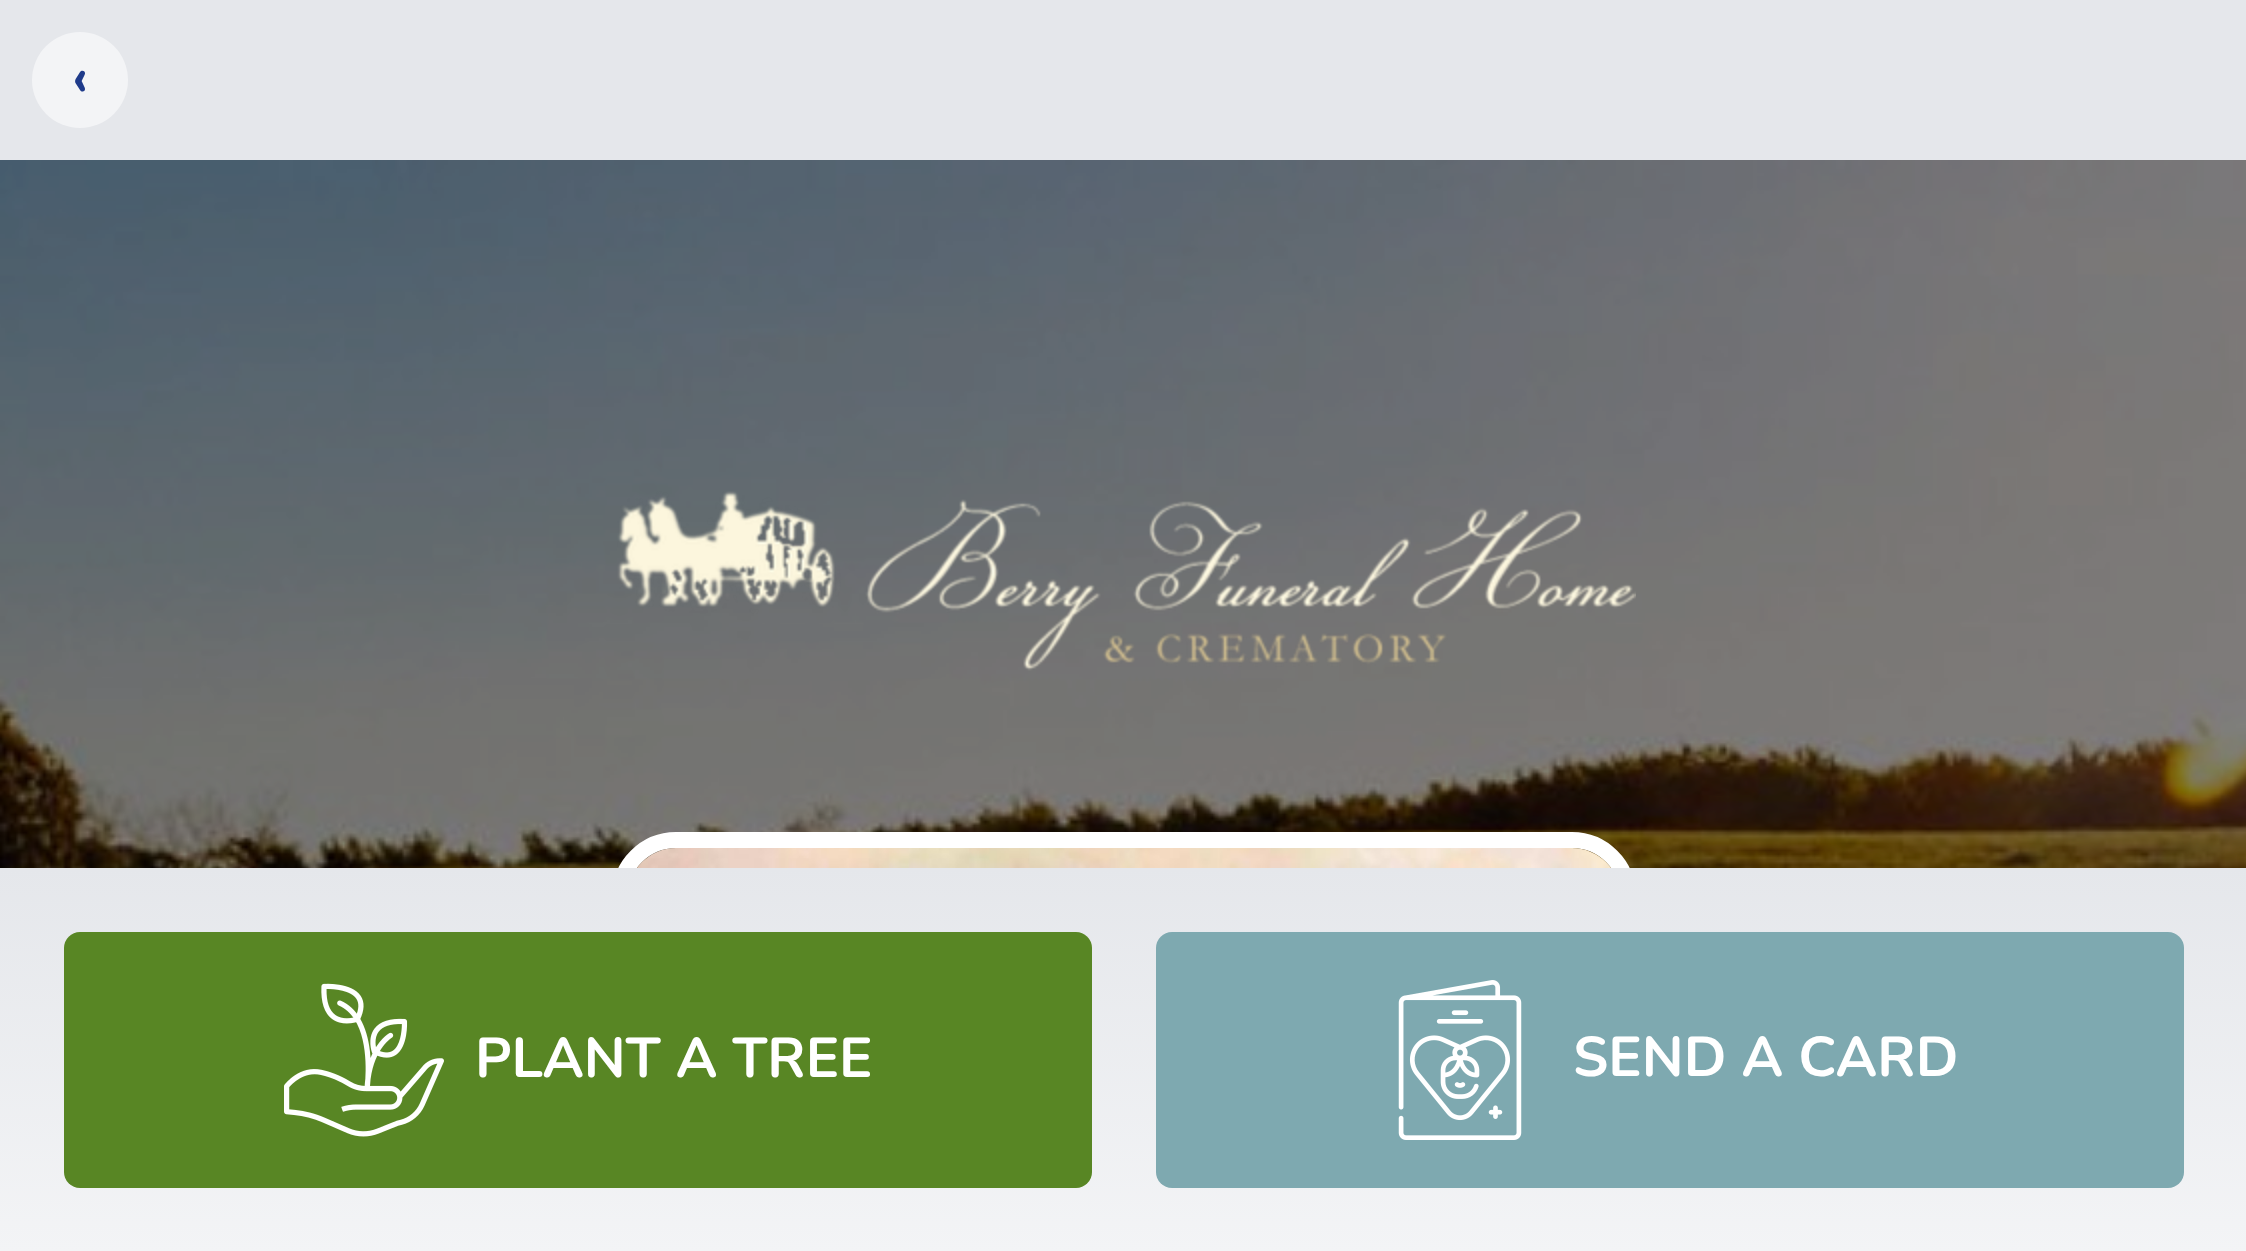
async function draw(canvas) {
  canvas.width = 2246;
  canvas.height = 1251;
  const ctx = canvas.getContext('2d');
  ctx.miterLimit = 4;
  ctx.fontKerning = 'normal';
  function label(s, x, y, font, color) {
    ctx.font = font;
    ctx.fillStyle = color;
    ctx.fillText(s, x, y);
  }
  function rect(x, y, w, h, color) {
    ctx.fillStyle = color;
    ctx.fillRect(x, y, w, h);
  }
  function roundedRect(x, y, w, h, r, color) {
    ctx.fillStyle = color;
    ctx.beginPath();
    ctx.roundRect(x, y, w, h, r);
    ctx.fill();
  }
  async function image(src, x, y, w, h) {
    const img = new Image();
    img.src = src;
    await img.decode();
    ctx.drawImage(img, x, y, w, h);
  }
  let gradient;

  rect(0, 0, 2246, 1251, '#e5e7eb');
  ctx.fillStyle = '#f3f4f6';
  ctx.beginPath();
  ctx.arc(80, 80, 48, 0, 2 * Math.PI);
  ctx.fill();
  label('‹', 72, 96, 'bold 56px Nunito', '#1e3a8a');
  await image('assets/img1.png', 0, 160, 2246, 708);
  await image('assets/img2.png', 617, 491, 1019, 180);
  ctx.beginPath();
  ctx.roundRect(620, 840, 1008, 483, 56);
  ctx.strokeStyle = '#fff';
  ctx.lineWidth = 16;
  ctx.stroke();
  await image('assets/img3.png', 637, 848, 974, 20);
  gradient = ctx.createLinearGradient(1124, 868, 1124, 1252);
  gradient.addColorStop(0, '#e5e7eb');
  gradient.addColorStop(1, '#f3f4f6');
  ctx.fillStyle = gradient;
  ctx.fillRect(0, 868, 2246, 383);
  roundedRect(64, 932, 1028, 256, 16, '#588624');
  await image('assets/img4.png', 284, 983, 160, 154);
  label('PLANT A TREE', 475, 1077, 'bold 56px Nunito', '#fff');
  roundedRect(1156, 932, 1028, 256, 16, '#7ea9b0');
  await image('assets/img5.png', 1398, 980, 124, 160);
  label('SEND A CARD', 1573, 1076, 'bold 56px Nunito', '#fff');
}

draw(document.querySelector('canvas'));
